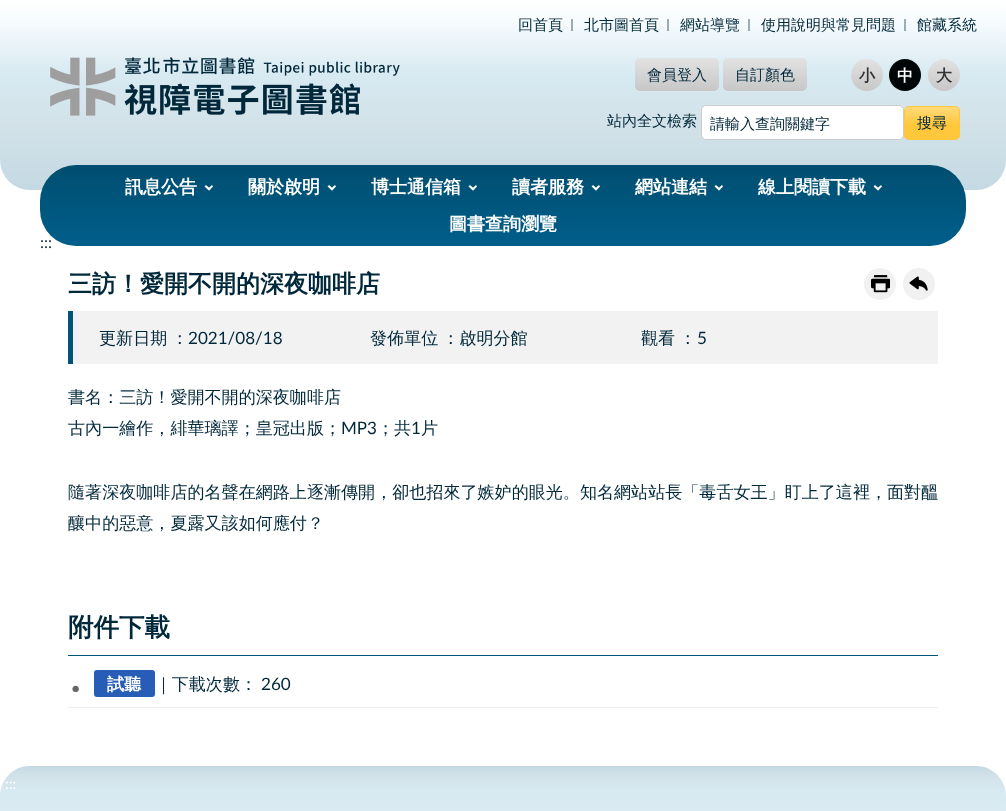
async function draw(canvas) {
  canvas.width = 1006;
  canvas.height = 811;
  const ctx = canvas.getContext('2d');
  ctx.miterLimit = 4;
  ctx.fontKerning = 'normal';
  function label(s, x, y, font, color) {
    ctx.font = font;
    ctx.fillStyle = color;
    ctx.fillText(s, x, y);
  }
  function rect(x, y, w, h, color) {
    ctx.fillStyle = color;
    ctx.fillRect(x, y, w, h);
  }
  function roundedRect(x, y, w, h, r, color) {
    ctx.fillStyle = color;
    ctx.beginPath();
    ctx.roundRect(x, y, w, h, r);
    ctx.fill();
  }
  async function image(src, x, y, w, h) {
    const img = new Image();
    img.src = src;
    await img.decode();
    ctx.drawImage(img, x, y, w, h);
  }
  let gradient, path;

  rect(0, 0, 1006, 811, '#fff');
  gradient = ctx.createLinearGradient(503, 190, 503, 0);
  gradient.addColorStop(0, '#c4d9e3');
  gradient.addColorStop(0.35, '#d3e2e9');
  gradient.addColorStop(0.6, '#d7e9f1');
  gradient.addColorStop(0.9, '#f8fcfe');
  gradient.addColorStop(1, '#fff');
  ctx.fillStyle = gradient;
  ctx.beginPath();
  ctx.roundRect(0, 0, 1006, 190, [0, 0, 30, 30]);
  ctx.fill();
  await image('assets/img1.png', 50, 57, 350, 59);
  label('回首頁', 518, 30, '500 15px WenQuanYi Zen Hei', '#00283a');
  label('｜', 566, 28, '500 12px WenQuanYi Zen Hei', '#00283a');
  label('北市圖首頁', 584, 30, '500 15px WenQuanYi Zen Hei', '#00283a');
  label('｜', 662, 28, '500 12px WenQuanYi Zen Hei', '#00283a');
  label('網站導覽', 680, 30, '500 15px WenQuanYi Zen Hei', '#00283a');
  label('｜', 743, 28, '500 12px WenQuanYi Zen Hei', '#00283a');
  label('使用說明與常見問題', 761, 30, '500 15px WenQuanYi Zen Hei', '#00283a');
  label('｜', 899, 28, '500 12px WenQuanYi Zen Hei', '#00283a');
  label('館藏系統', 917, 30, '500 15px WenQuanYi Zen Hei', '#00283a');
  gradient = ctx.createLinearGradient(677, 58, 677, 91);
  gradient.addColorStop(0, '#e2e2e2');
  gradient.addColorStop(1, '#c7c7c7');
  ctx.fillStyle = gradient;
  ctx.beginPath();
  ctx.roundRect(635, 58, 84, 33, 5);
  ctx.fill();
  label('會員登入', 647, 80, '500 15px WenQuanYi Zen Hei', '#00283a');
  gradient = ctx.createLinearGradient(765, 58, 765, 91);
  gradient.addColorStop(0, '#e2e2e2');
  gradient.addColorStop(1, '#c7c7c7');
  ctx.fillStyle = gradient;
  ctx.beginPath();
  ctx.roundRect(723, 58, 84, 33, 5);
  ctx.fill();
  label('自訂顏色', 735, 80, '500 15px WenQuanYi Zen Hei', '#00283a');
  gradient = ctx.createLinearGradient(867, 59, 867, 91);
  gradient.addColorStop(0, '#e2e2e2');
  gradient.addColorStop(1, '#c7c7c7');
  ctx.fillStyle = gradient;
  ctx.beginPath();
  ctx.arc(867, 75, 16, 0, 2 * Math.PI);
  ctx.fill();
  label('小', 859, 81, 'bold 16px WenQuanYi Zen Hei', '#333');
  ctx.fillStyle = '#000507';
  ctx.beginPath();
  ctx.arc(905, 75, 16, 0, 2 * Math.PI);
  ctx.fill();
  label('中', 897, 81, 'bold 16px WenQuanYi Zen Hei', '#fff');
  gradient = ctx.createLinearGradient(944, 59, 944, 91);
  gradient.addColorStop(0, '#e2e2e2');
  gradient.addColorStop(1, '#c7c7c7');
  ctx.fillStyle = gradient;
  ctx.beginPath();
  ctx.arc(944, 75, 16, 0, 2 * Math.PI);
  ctx.fill();
  label('大', 936, 81, 'bold 16px WenQuanYi Zen Hei', '#333');
  label('站內全文檢索', 607, 126, '500 15px WenQuanYi Zen Hei', '#00283a');
  ctx.fillStyle = '#fff';
  ctx.beginPath();
  ctx.roundRect(701.5, 105.5, 202, 34, 4.5);
  ctx.fill();
  ctx.strokeStyle = '#ccc';
  ctx.stroke();
  label('請輸入查詢關鍵字', 710, 129, '500 15px WenQuanYi Zen Hei', '#00283a');
  ctx.save();
  ctx.beginPath();
  ctx.roundRect(904, 106, 56, 34, 5);
  ctx.clip();
  gradient = ctx.createLinearGradient(932, 107, 932, 139);
  gradient.addColorStop(0, '#ffda7a');
  gradient.addColorStop(0.55, '#ffc83c');
  ctx.fillStyle = gradient;
  ctx.fillRect(904, 107, 56, 32);
  ctx.restore();
  ctx.beginPath();
  ctx.roundRect(904.5, 106.5, 55, 33, 4.5);
  ctx.strokeStyle = '#ffc83c';
  ctx.stroke();
  label('搜尋', 917, 128, '500 15px WenQuanYi Zen Hei', '#00283a');
  label(':::', 40, 248, '16px Lato', '#00283a');
  gradient = ctx.createLinearGradient(503, 165, 503, 246);
  gradient.addColorStop(0, '#004e70');
  gradient.addColorStop(1, '#005e8a');
  ctx.fillStyle = gradient;
  ctx.beginPath();
  ctx.roundRect(40, 165, 926, 81, 36);
  ctx.fill();
  label('訊息公告', 125, 193, 'bold 18px WenQuanYi Zen Hei', '#fff');
  path = new Path2D('M213 186.5L209 190.5L207.5 189L212 185Z');
  ctx.fill(path);
  path = new Path2D('M210.5 189L209 190.5L204.5 186.5L206 185Z');
  ctx.fill(path);
  label('關於啟明', 248, 193, 'bold 18px WenQuanYi Zen Hei', '#fff');
  path = new Path2D('M336 186.5L332 190.5L330.5 189L335 185Z');
  ctx.fill(path);
  path = new Path2D('M333.5 189L332 190.5L327.5 186.5L329 185Z');
  ctx.fill(path);
  label('博士通信箱', 371, 193, 'bold 18px WenQuanYi Zen Hei', '#fff');
  path = new Path2D('M477 186.5L473 190.5L471.5 189L476 185Z');
  ctx.fill(path);
  path = new Path2D('M474.5 189L473 190.5L468.5 186.5L470 185Z');
  ctx.fill(path);
  label('讀者服務', 512, 193, 'bold 18px WenQuanYi Zen Hei', '#fff');
  path = new Path2D('M600 186.5L596 190.5L594.5 189L599 185Z');
  ctx.fill(path);
  path = new Path2D('M597.5 189L596 190.5L591.5 186.5L593 185Z');
  ctx.fill(path);
  label('網站連結', 635, 193, 'bold 18px WenQuanYi Zen Hei', '#fff');
  path = new Path2D('M723 186.5L719 190.5L717.5 189L722 185Z');
  ctx.fill(path);
  path = new Path2D('M720.5 189L719 190.5L714.5 186.5L716 185Z');
  ctx.fill(path);
  label('線上閱讀下載', 758, 193, 'bold 18px WenQuanYi Zen Hei', '#fff');
  path = new Path2D('M882 186.5L878 190.5L876.5 189L881 185Z');
  ctx.fill(path);
  path = new Path2D('M879.5 189L878 190.5L873.5 186.5L875 185Z');
  ctx.fill(path);
  label('圖書查詢瀏覽', 449, 230, 'bold 18px WenQuanYi Zen Hei', '#fff');
  label('三訪！愛開不開的深夜咖啡店', 68, 292, 'bold 24px WenQuanYi Zen Hei', '#00283a');
  ctx.fillStyle = '#f1f1f1';
  ctx.beginPath();
  ctx.arc(880, 284, 16, 0, 2 * Math.PI);
  ctx.fill();
  await image('assets/img2.png', 871, 275, 19, 18);
  ctx.beginPath();
  ctx.arc(919, 284, 16, 0, 2 * Math.PI);
  ctx.fill();
  await image('assets/img3.png', 909, 276, 19, 15);
  rect(73, 311, 865, 53, '#f2f2f2');
  rect(68, 311, 5, 53, '#015379');
  ctx.wordSpacing = '-1px';
  label('更新日期 ：', 99, 344, '500 17.07px WenQuanYi Zen Hei', '#00283a');
  ctx.wordSpacing = '0px';
  label('2021/08/18', 188, 344, '17.07px Lato', '#00283a');
  ctx.wordSpacing = '-1px';
  label('發佈單位 ：啟明分館', 370, 344, '500 17.07px WenQuanYi Zen Hei', '#00283a');
  label('觀看 ：', 641, 344, '500 17.07px WenQuanYi Zen Hei', '#00283a');
  ctx.wordSpacing = '0px';
  label('5', 697, 344, '17.07px Lato', '#00283a');
  label('書名：三訪！愛開不開的深夜咖啡店', 68, 403, '500 17.07px WenQuanYi Zen Hei', '#00283a');
  label('古內一繪作，緋華璃譯；皇冠出版；', 68, 434, '500 17.07px WenQuanYi Zen Hei', '#00283a');
  label('MP3', 341, 434, '17.07px Lato', '#00283a');
  label('；共', 377, 434, '500 17.07px WenQuanYi Zen Hei', '#00283a');
  label('1', 411, 434, '17.07px Lato', '#00283a');
  label('片', 421, 434, '500 17.07px WenQuanYi Zen Hei', '#00283a');
  label('隨著深夜咖啡店的名聲在網路上逐漸傳開，卻也招來了嫉妒的眼光。知名網站站長「毒舌女王」盯上了這裡，面對醞', 68, 498, '500 17.07px WenQuanYi Zen Hei', '#00283a');
  label('釀中的惡意，夏露又該如何應付？', 68, 529, '500 17.07px WenQuanYi Zen Hei', '#00283a');
  rect(68, 655, 870, 1, '#015379');
  label('附件下載', 68, 636, 'bold 25.5px WenQuanYi Zen Hei', '#00283a');
  rect(68, 707, 870, 1, '#eee');
  label('·', 71, 699, 'bold 34px Lato', '#666');
  roundedRect(94, 670, 61, 27, 3, '#275cb7');
  label('試聽', 107, 690, 'bold 17.07px WenQuanYi Zen Hei', '#fff');
  label('｜下載次數：', 155, 690, '500 17.07px WenQuanYi Zen Hei', '#00283a');
  label('260', 261, 690, '17.07px Lato', '#00283a');
  gradient = ctx.createLinearGradient(503, 766, 503, 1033);
  gradient.addColorStop(0, '#c4d9e3');
  gradient.addColorStop(0.04, '#d3e2e9');
  gradient.addColorStop(0.09, '#d7e9f1');
  gradient.addColorStop(1, '#f8fcfe');
  ctx.fillStyle = gradient;
  path = new Path2D('M30 766H976C992.5 766 1006 779.5 1006 796V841H0V796C0 779.5 13.5 766 30 766Z');
  ctx.fill(path);
  label(':::', 5, 789, '15px Lato', '#fff');
}

draw(document.querySelector('canvas'));
